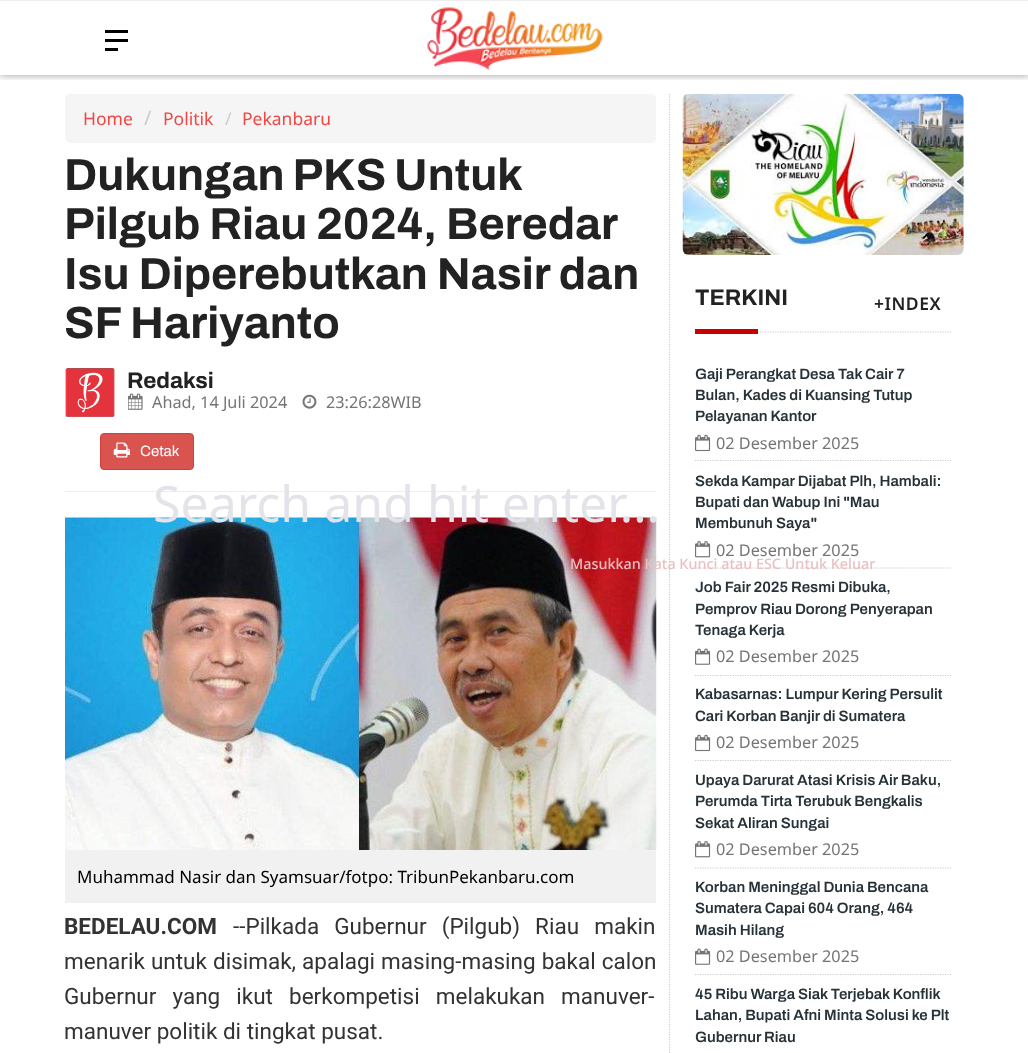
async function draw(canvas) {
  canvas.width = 1028;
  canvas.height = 1053;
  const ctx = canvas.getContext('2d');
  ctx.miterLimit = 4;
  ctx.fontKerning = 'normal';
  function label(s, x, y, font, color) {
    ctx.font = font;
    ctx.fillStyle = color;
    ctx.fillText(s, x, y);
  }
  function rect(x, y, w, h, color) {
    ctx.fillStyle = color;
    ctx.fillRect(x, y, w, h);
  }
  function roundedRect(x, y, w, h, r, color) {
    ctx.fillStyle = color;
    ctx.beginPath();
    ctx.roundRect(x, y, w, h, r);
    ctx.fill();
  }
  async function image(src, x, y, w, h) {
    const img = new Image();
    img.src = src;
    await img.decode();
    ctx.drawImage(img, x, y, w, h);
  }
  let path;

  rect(0, 0, 1028, 1053, '#fff');
  roundedRect(65, 94, 591, 49, 5, '#f5f5f5');
  label('Home', 83, 125, '17.5px Noto Sans', '#f04644');
  label('/', 144, 125, '20px Noto Sans', '#ccc');
  label('Politik', 163, 125, '17.5px Noto Sans', '#f04644');
  label('/', 225, 125, '17.5px Noto Sans', '#ccc');
  label('Pekanbaru', 242, 125, '17.5px Noto Sans', '#f04644');
  ctx.wordSpacing = '-1px';
  label('Dukungan PKS Untuk', 64, 190, 'bold 45px Archivo', '#222');
  ctx.wordSpacing = '0px';
  label('Pilgub Riau 2024, Beredar', 64, 239, 'bold 45px Archivo', '#222');
  label('Isu Diperebutkan Nasir dan', 64, 289, 'bold 45px Archivo', '#222');
  label('SF Hariyanto', 64, 338, 'bold 45px Archivo', '#222');
  await image('assets/img1.png', 65, 368, 50, 49);
  label('Redaksi', 127, 388, 'bold 22.5px Archivo', '#222');
  await image('assets/img2.png', 128, 393, 15, 17);
  label('Ahad, 14 Juli 2024', 152, 408, '16.25px Noto Sans', '#757575');
  await image('assets/img3.png', 302, 394, 15, 15);
  label('23:26:28WIB', 326, 408, '16.25px Noto Sans', '#757575');
  ctx.fillStyle = '#d9534f';
  ctx.beginPath();
  ctx.roundRect(100.5, 433.5, 93, 36, 3.5);
  ctx.fill();
  ctx.strokeStyle = '#d43f3a';
  ctx.stroke();
  await image('assets/img4.png', 113, 442, 17, 16);
  label('Cetak', 140, 456, '15px Archivo', '#fff');
  rect(65, 491, 591, 1, '#efefef');
  await image('assets/img5.png', 65, 517, 592, 333);
  rect(65, 850, 591, 53, '#f1f1f1');
  label('Muhammad Nasir dan Syamsuar/fotpo: TribunPekanbaru.com', 77, 883, '17px Noto Sans', '#000');
  label('BEDELAU.COM', 64, 934, 'bold 22.5px Roboto', '#333');
  ctx.wordSpacing = '9.5px';
  label('--Pilkada Gubernur (Pilgub) Riau makin', 233, 934, '22.5px Roboto', '#333');
  ctx.wordSpacing = '0.5px';
  label('menarik untuk disimak, apalagi masing-masing bakal calon', 64, 969, '22.5px Roboto', '#333');
  ctx.wordSpacing = '10.5px';
  label('Gubernur yang ikut berkompetisi melakukan manuver-', 64, 1004, '22.5px Roboto', '#333');
  ctx.wordSpacing = '0px';
  label('manuver politik di tingkat pusat.', 64, 1039, '22.5px Roboto', '#333');
  path = new Path2D('M669.5 94V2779');
  ctx.strokeStyle = '#ccc';
  ctx.lineWidth = 1.2;
  ctx.setLineDash([1.25, 1.25]);
  ctx.stroke(path);
  await image('assets/img6.png', 682, 93, 282, 162);
  path = new Path2D('M695 332H951');
  ctx.stroke(path);
  label('TERKINI', 695, 305, 'bold 22.5px Archivo', '#222');
  ctx.letterSpacing = '0.5px';
  label('+INDEX', 874, 310, '600 17.5px Noto Sans', '#222');
  rect(695, 329, 63, 5, '#c80000');
  path = new Path2D('M695 460.5H951');
  ctx.stroke(path);
  ctx.letterSpacing = '0px';
  label('Gaji Perangkat Desa Tak Cair 7', 695, 379, '600 15px Archivo', '#263238');
  label('Bulan, Kades di Kuansing Tutup', 695, 400, '600 15px Archivo', '#263238');
  label('Pelayanan Kantor', 695, 421, '600 15px Archivo', '#263238');
  await image('assets/img7.png', 695, 434, 16, 18);
  label('02 Desember 2025', 716, 449, '16.25px Noto Sans', '#757575');
  path = new Path2D('M695 568H951');
  ctx.stroke(path);
  label('Sekda Kampar Dijabat Plh, Hambali:', 695, 486, '600 15px Archivo', '#263238');
  label('Bupati dan Wabup Ini "Mau', 695, 507, '600 15px Archivo', '#263238');
  label('Membunuh Saya"', 695, 528, '600 15px Archivo', '#263238');
  await image('assets/img8.png', 695, 541, 16, 17);
  label('02 Desember 2025', 716, 556, '16.25px Noto Sans', '#757575');
  path = new Path2D('M695 675.5H951');
  ctx.stroke(path);
  label('Job Fair 2025 Resmi Dibuka,', 695, 592, '600 15px Archivo', '#263238');
  label('Pemprov Riau Dorong Penyerapan', 695, 614, '600 15px Archivo', '#263238');
  label('Tenaga Kerja', 695, 635, '600 15px Archivo', '#263238');
  await image('assets/img9.png', 695, 648, 16, 17);
  label('02 Desember 2025', 716, 662, '16.25px Noto Sans', '#757575');
  path = new Path2D('M695 760.5H951');
  ctx.stroke(path);
  label('Kabasarnas: Lumpur Kering Persulit', 695, 699, '600 15px Archivo', '#263238');
  label('Cari Korban Banjir di Sumatera', 695, 721, '600 15px Archivo', '#263238');
  await image('assets/img7.png', 695, 734, 16, 18);
  label('02 Desember 2025', 716, 748, '16.25px Noto Sans', '#757575');
  path = new Path2D('M695 868H951');
  ctx.stroke(path);
  label('Upaya Darurat Atasi Krisis Air Baku,', 695, 785, '600 15px Archivo', '#263238');
  label('Perumda Tirta Terubuk Bengkalis', 695, 806, '600 15px Archivo', '#263238');
  label('Sekat Aliran Sungai', 695, 828, '600 15px Archivo', '#263238');
  await image('assets/img8.png', 695, 841, 16, 17);
  label('02 Desember 2025', 716, 855, '16.25px Noto Sans', '#757575');
  path = new Path2D('M695 974.5H951');
  ctx.stroke(path);
  label('Korban Meninggal Dunia Bencana', 695, 892, '600 15px Archivo', '#263238');
  label('Sumatera Capai 604 Orang, 464', 695, 913, '600 15px Archivo', '#263238');
  label('Masih Hilang', 695, 935, '600 15px Archivo', '#263238');
  await image('assets/img9.png', 695, 948, 16, 17);
  label('02 Desember 2025', 716, 962, '16.25px Noto Sans', '#757575');
  label('45 Ribu Warga Siak Terjebak Konflik', 695, 999, '600 15px Archivo', '#263238');
  label('Lahan, Bupati Afni Minta Solusi ke Plt', 695, 1020, '600 15px Archivo', '#263238');
  label('Gubernur Riau', 695, 1042, '600 15px Archivo', '#263238');
  ctx.save();
  ctx.beginPath();
  ctx.rect(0, 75, 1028, 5);
  ctx.clip();
  ctx.fillStyle = '#0000001a';
  ctx.filter = 'blur(6px)';
  ctx.beginPath();
  ctx.rect(0, 0, 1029, 75);
  ctx.fill();
  ctx.filter = 'none';
  ctx.fillStyle = '#00000040';
  ctx.filter = 'blur(3px)';
  ctx.beginPath();
  ctx.rect(0, 1, 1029, 75);
  ctx.fill();
  ctx.filter = 'none';
  ctx.restore();
  rect(0, 0, 1028, 1, '#eee');
  rect(105, 39, 23, 3, '#000');
  rect(105, 30, 23, 3, '#000');
  rect(105, 48, 13, 3, '#000');
  await image('assets/img10.png', 427, 7, 176, 63);
  label('Search and hit enter...', 153, 522, '50px Noto Sans', '#e3e3ea');
  label('Masukkan Kata Kunci atau ESC Untuk Keluar', 570, 569, '500 14.4px Noto Sans', '#eac0c3');
}

draw(document.querySelector('canvas'));
